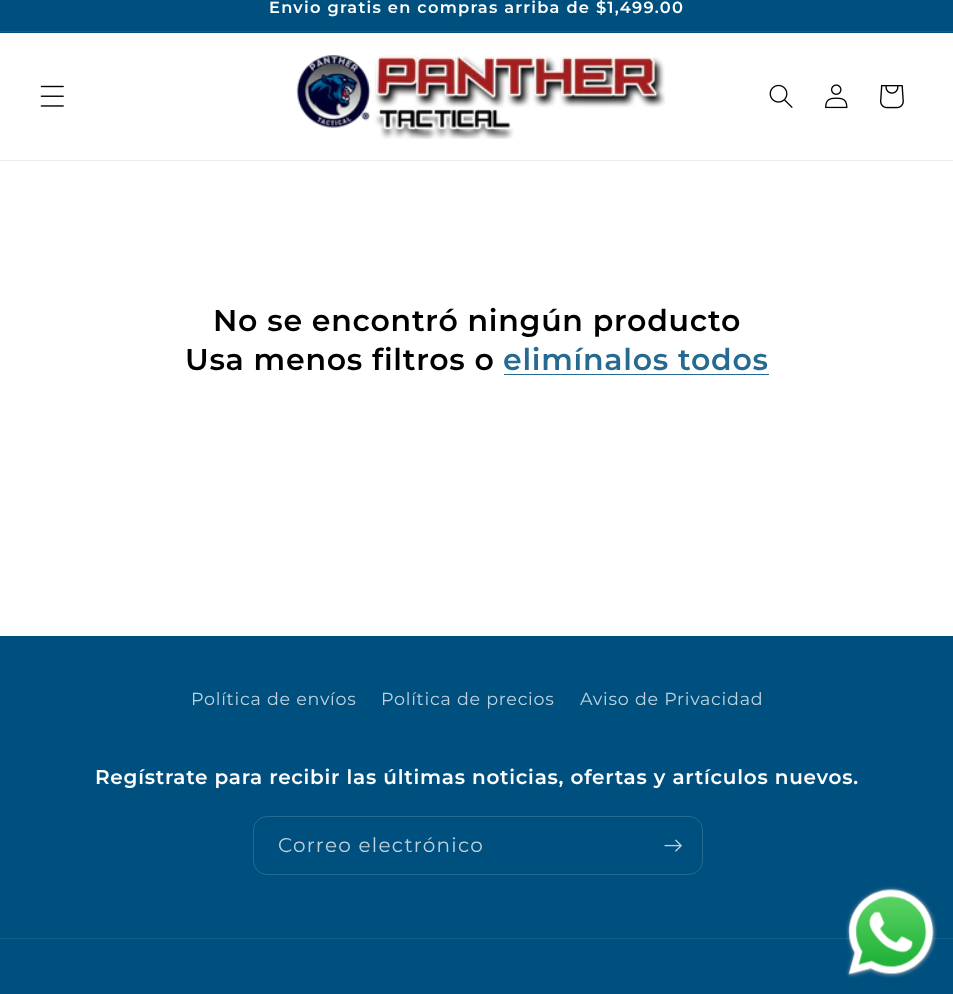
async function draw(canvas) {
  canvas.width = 953;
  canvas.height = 994;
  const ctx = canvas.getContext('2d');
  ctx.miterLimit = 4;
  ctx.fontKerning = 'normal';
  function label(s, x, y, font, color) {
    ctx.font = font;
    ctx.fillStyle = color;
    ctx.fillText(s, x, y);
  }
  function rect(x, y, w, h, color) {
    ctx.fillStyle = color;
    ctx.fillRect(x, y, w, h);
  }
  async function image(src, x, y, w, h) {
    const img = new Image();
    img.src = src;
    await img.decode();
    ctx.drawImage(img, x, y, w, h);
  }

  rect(0, 0, 953, 994, '#fff');
  rect(0, 0, 953, 33, '#00507f');
  rect(0, 31, 953, 1, '#145e89');
  ctx.letterSpacing = '1.25px';
  label('Envio gratis en compras arriba de $1,499.00', 269, 13, '600 16.25px Montserrat', '#fff');
  rect(0, 160, 953, 1, '#ebebeb');
  await image('assets/img1.png', 40, 85, 24, 22);
  await image('assets/img2.png', 296, 55, 369, 84);
  await image('assets/img3.png', 769, 84, 24, 24);
  await image('assets/img4.png', 825, 84, 23, 25);
  await image('assets/img5.png', 880, 85, 24, 24);
  ctx.letterSpacing = '0.75px';
  label('No se encontró ningún producto', 213, 331, '600 30px Montserrat', '#000');
  label('Usa menos filtros o', 185, 370, '600 30px Montserrat', '#000');
  label('elimínalos todos', 503, 370, '600 30px Montserrat', '#266a92');
  rect(504, 374, 265, 1, '#266a92');
  rect(0, 636, 953, 358, '#00507f');
  label('Política de envíos', 191, 705, '17.5px Montserrat', '#bfd3df');
  label('Política de precios', 381, 705, '17.5px Montserrat', '#bfd3df');
  label('Aviso de Privacidad', 580, 705, '17.5px Montserrat', '#bfd3df');
  label('Regístrate para recibir las últimas noticias, ofertas y artículos nuevos.', 95, 784, '600 20px Montserrat', '#fff');
  ctx.beginPath();
  ctx.roundRect(253.5, 816.5, 449, 58, 13.5);
  ctx.strokeStyle = '#266a92';
  ctx.stroke();
  ctx.letterSpacing = '1.25px';
  label('Correo electrónico', 278, 852, '20px Montserrat', '#bfd3df');
  await image('assets/img6.png', 664, 839, 18, 13);
  rect(0, 938, 953, 1, '#145e89');
  await image('assets/img7.png', 845, 886, 92, 92);
}

draw(document.querySelector('canvas'));
